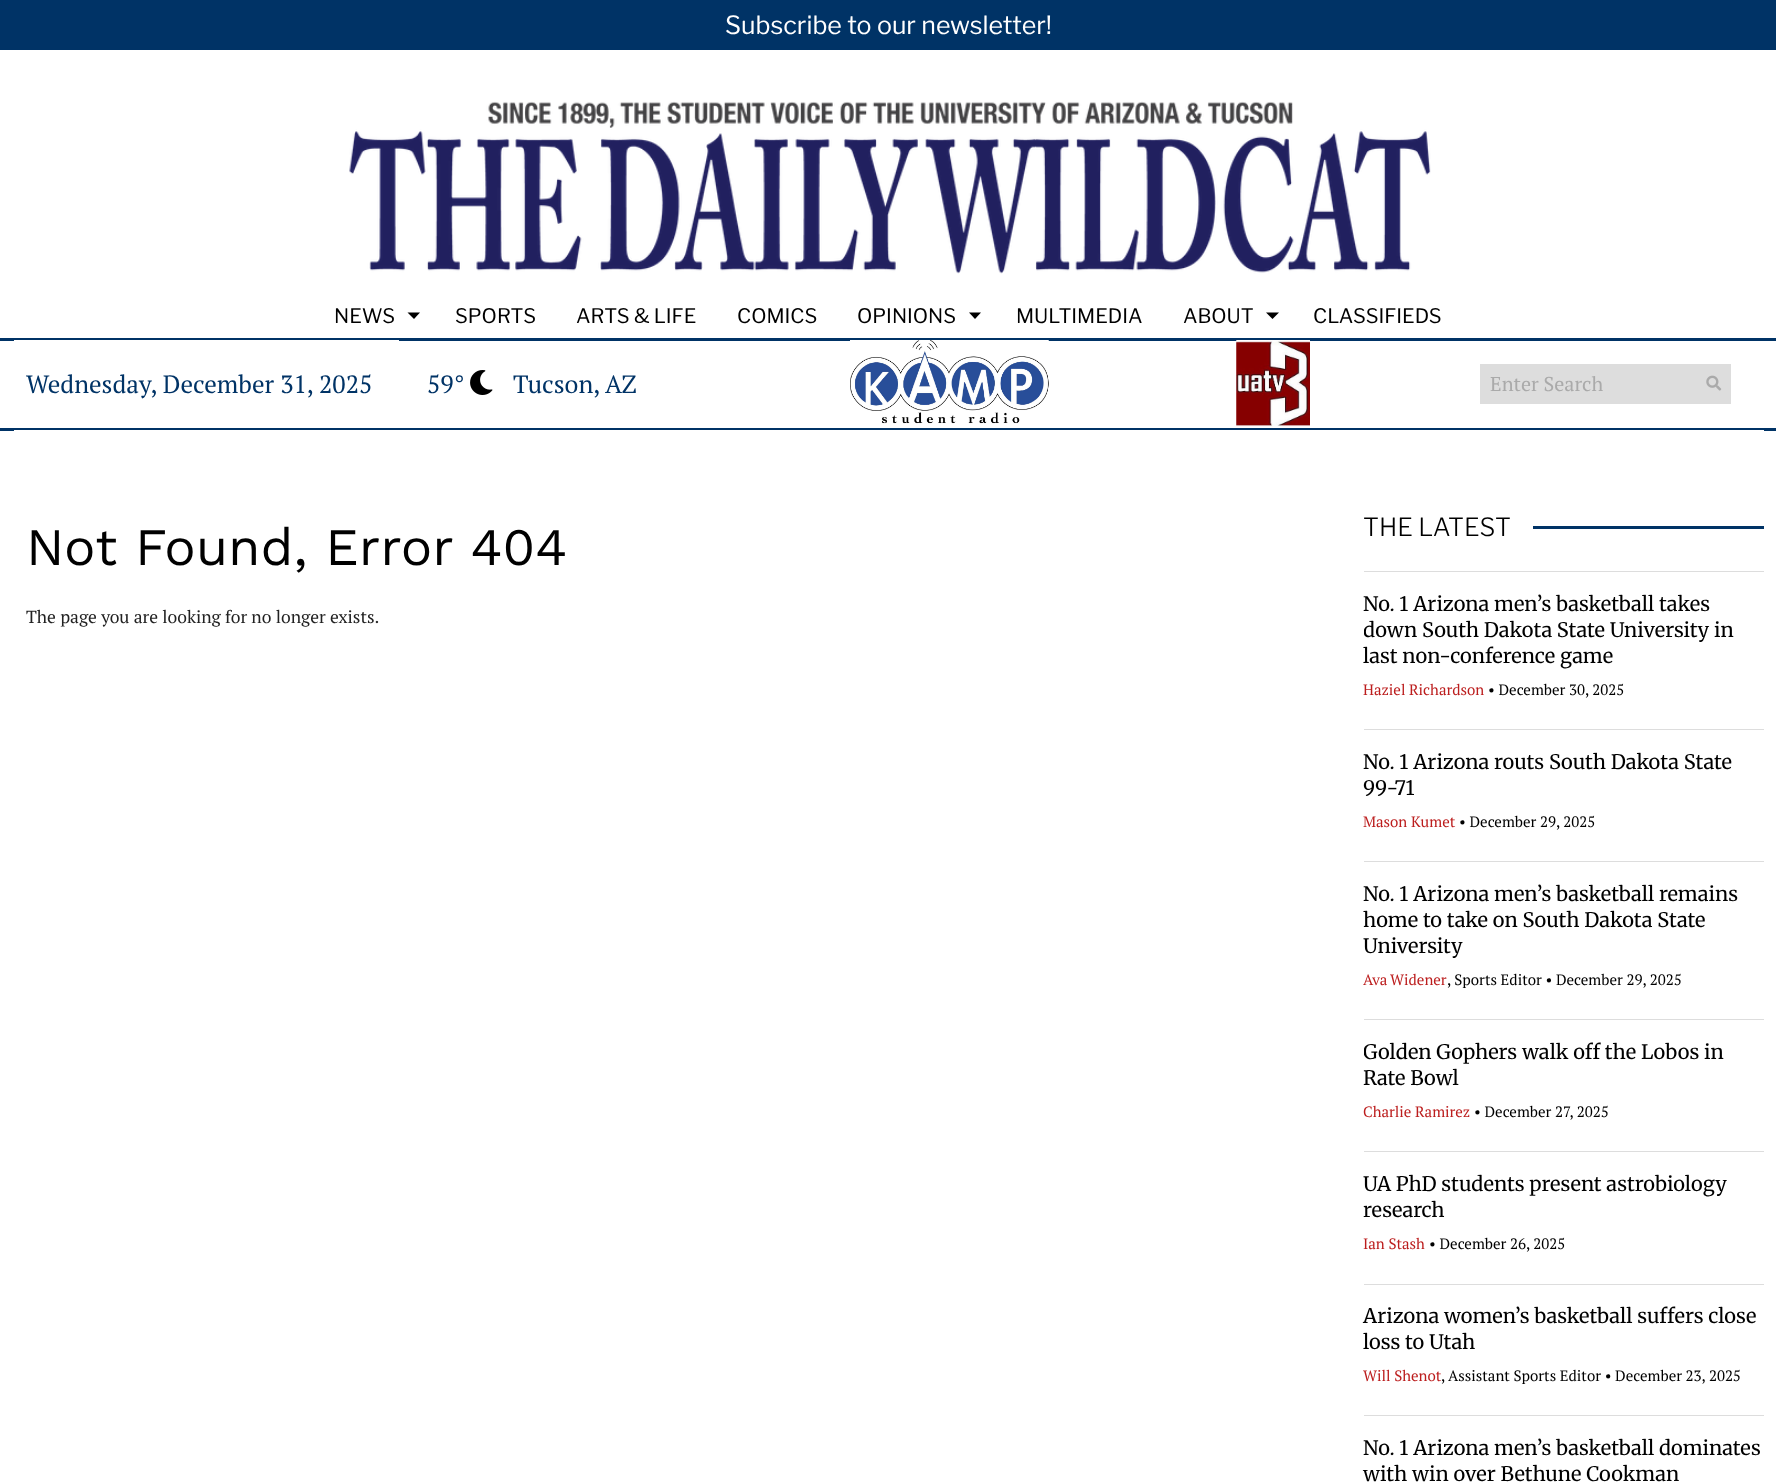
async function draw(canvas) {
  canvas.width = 1776;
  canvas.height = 1482;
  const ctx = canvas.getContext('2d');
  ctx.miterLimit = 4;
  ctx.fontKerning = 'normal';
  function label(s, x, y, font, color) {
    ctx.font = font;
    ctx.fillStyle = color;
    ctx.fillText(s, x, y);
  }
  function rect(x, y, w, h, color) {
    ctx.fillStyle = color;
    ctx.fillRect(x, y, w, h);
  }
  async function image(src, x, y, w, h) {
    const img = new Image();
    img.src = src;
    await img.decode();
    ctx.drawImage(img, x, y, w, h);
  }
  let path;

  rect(0, 0, 1776, 1482, '#fff');
  rect(0, 0, 1776, 50, '#036');
  label('Subscribe to our newsletter!', 725, 34, '25px Libre Franklin', '#fff');
  await image('assets/img1.png', 349, 101, 1082, 173);
  label('NEWS', 334, 323, '20px Libre Franklin', '#000');
  path = new Path2D('M407.5 312.5H420L414 319Z');
  ctx.fill(path);
  label('SPORTS', 455, 323, '20px Libre Franklin', '#000');
  label('ARTS & LIFE', 576, 323, '20px Libre Franklin', '#000');
  label('COMICS', 737, 323, '20px Libre Franklin', '#000');
  label('OPINIONS', 857, 323, '20px Libre Franklin', '#000');
  path = new Path2D('M969 312.5H981L975 319Z');
  ctx.fill(path);
  label('MULTIMEDIA', 1016, 323, '20px Libre Franklin', '#000');
  label('ABOUT', 1183, 323, '20px Libre Franklin', '#000');
  path = new Path2D('M1266 312.5H1279L1272.5 319Z');
  ctx.fill(path);
  label('CLASSIFIEDS', 1313, 323, '20px Libre Franklin', '#000');
  rect(0, 338, 1776, 3, '#036');
  rect(0, 428, 1776, 3, '#036');
  rect(14, 340, 385, 1, '#fff');
  label('Wednesday, December 31, 2025', 26, 393, '25px PT Serif', '#036');
  label('59°', 427, 393, '25px PT Serif', '#036');
  await image('assets/img2.png', 470, 370, 23, 25);
  label('Tucson, AZ', 513, 393, '25px PT Serif', '#036');
  await image('assets/img3.png', 850, 340, 199, 84);
  await image('assets/img4.png', 1236, 340, 74, 87);
  rect(1480, 364, 251, 40, '#ddd');
  label('Enter Search', 1490, 391, '20px PT Serif', '#aaa');
  await image('assets/img5.png', 1706, 375, 16, 16);
  rect(14, 430, 1750, 1, '#fff');
  label('Not Found, Error 404', 26, 565, '52.5px Work Sans', '#000');
  label('The page you are looking for no longer exists.', 26, 623, '17.5px PT Serif', '#222');
  label('THE LATEST', 1363, 536, '300 25px Libre Franklin', '#000');
  rect(1533, 526, 231, 3, '#036');
  rect(1364, 571, 400, 1, '#ddd');
  label('No. 1 Arizona men’s basketball takes', 1363, 611, '20px Merriweather', '#000');
  ctx.save();
  ctx.beginPath();
  ctx.rect(1364, 591, 400, 110);
  ctx.clip();
  label('down South Dakota State University in', 1363, 637, '20px Merriweather', '#000');
  ctx.restore();
  label('last non-conference game', 1363, 663, '20px Merriweather', '#000');
  label('Haziel Richardson', 1363, 695, '15px PT Serif', '#bc1e1e');
  label('• December 30, 2025', 1488, 695, '15px PT Serif', '#000');
  rect(1364, 729, 400, 1, '#ddd');
  label('No. 1 Arizona routs South Dakota State', 1363, 769, '20px Merriweather', '#000');
  label('99-71', 1363, 795, '20px Merriweather', '#000');
  label('Mason Kumet', 1363, 827, '15px PT Serif', '#bc1e1e');
  label('• December 29, 2025', 1459, 827, '15px PT Serif', '#000');
  rect(1364, 861, 400, 1, '#ddd');
  label('No. 1 Arizona men’s basketball remains', 1363, 901, '20px Merriweather', '#000');
  label('home to take on South Dakota State', 1363, 927, '20px Merriweather', '#000');
  label('University', 1363, 953, '20px Merriweather', '#000');
  ctx.wordSpacing = '-1px';
  label('Ava Widener', 1363, 985, '15px PT Serif', '#bc1e1e');
  ctx.wordSpacing = '0px';
  label(', Sports Editor • December 29, 2025', 1447, 985, '15px PT Serif', '#000');
  rect(1364, 1019, 400, 1, '#ddd');
  ctx.save();
  ctx.beginPath();
  ctx.rect(1364, 1039, 400, 84);
  ctx.clip();
  label('Golden Gophers walk off the Lobos in', 1363, 1059, '20px Merriweather', '#000');
  ctx.restore();
  label('Rate Bowl', 1363, 1085, '20px Merriweather', '#000');
  label('Charlie Ramirez', 1363, 1117, '15px PT Serif', '#bc1e1e');
  label('• December 27, 2025', 1474, 1117, '15px PT Serif', '#000');
  rect(1364, 1151, 400, 1, '#ddd');
  label('UA PhD students present astrobiology', 1363, 1191, '20px Merriweather', '#000');
  label('research', 1363, 1217, '20px Merriweather', '#000');
  label('Ian Stash', 1363, 1249, '15px PT Serif', '#bc1e1e');
  label('• December 26, 2025', 1429, 1249, '15px PT Serif', '#000');
  rect(1364, 1284, 400, 1, '#ddd');
  label('Arizona women’s basketball suffers close', 1363, 1323, '20px Merriweather', '#000');
  label('loss to Utah', 1363, 1349, '20px Merriweather', '#000');
  label('Will Shenot', 1363, 1381, '15px PT Serif', '#bc1e1e');
  label(', Assistant Sports Editor • December 23, 2025', 1441, 1381, '15px PT Serif', '#000');
  rect(1364, 1415, 400, 1, '#ddd');
  label('No. 1 Arizona men’s basketball dominates', 1363, 1455, '20px Merriweather', '#000');
  label('with win over Bethune Cookman', 1363, 1481, '20px Merriweather', '#000');
}

draw(document.querySelector('canvas'));
